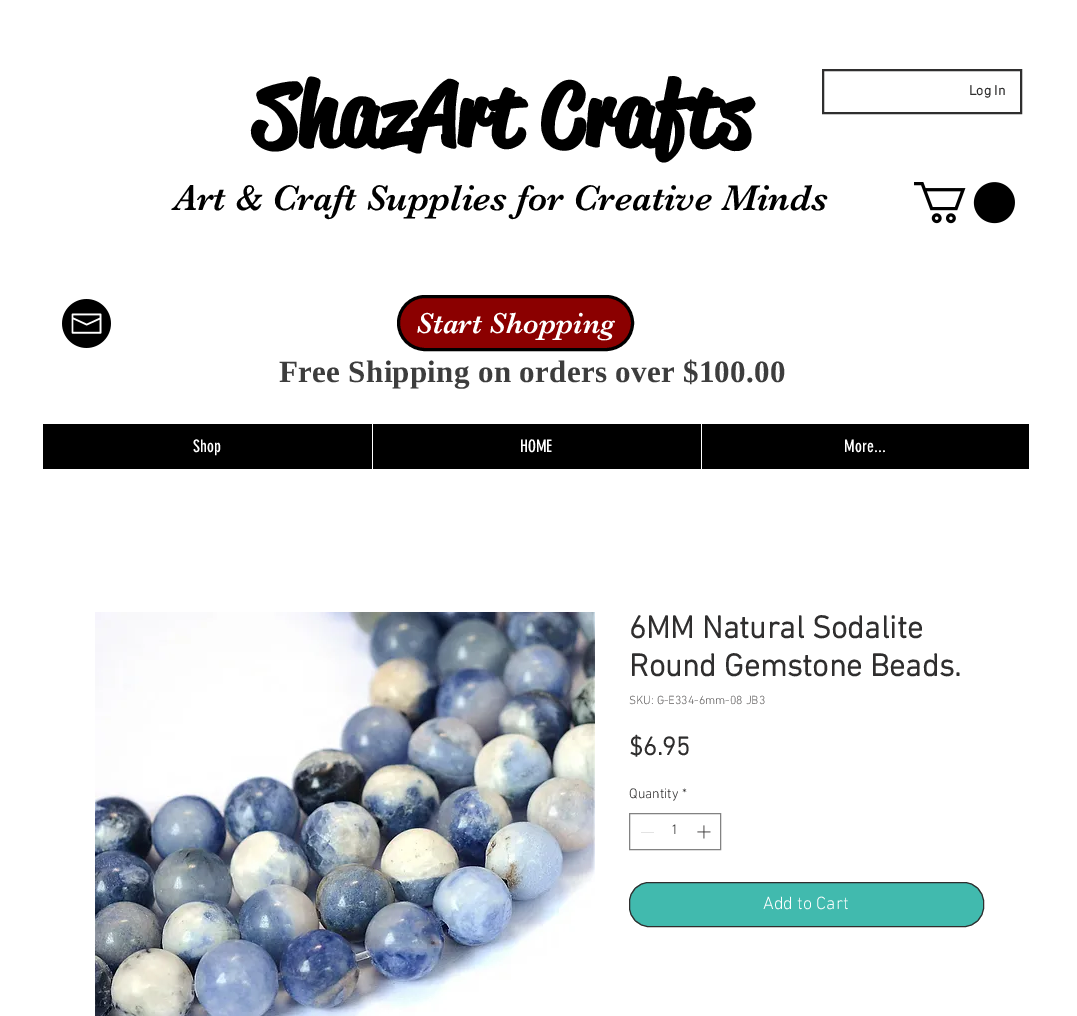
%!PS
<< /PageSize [1077 1016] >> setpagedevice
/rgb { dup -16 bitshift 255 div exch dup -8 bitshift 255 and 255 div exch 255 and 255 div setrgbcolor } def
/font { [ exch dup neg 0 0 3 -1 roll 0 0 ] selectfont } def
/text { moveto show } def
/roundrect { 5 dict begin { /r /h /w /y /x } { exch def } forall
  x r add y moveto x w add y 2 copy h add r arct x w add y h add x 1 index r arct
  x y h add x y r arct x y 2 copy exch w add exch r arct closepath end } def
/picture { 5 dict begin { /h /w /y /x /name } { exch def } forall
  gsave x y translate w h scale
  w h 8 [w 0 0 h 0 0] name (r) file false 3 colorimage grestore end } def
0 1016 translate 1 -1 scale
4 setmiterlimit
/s1 { /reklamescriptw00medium-Bold 89 font 16#000000 rgb } def
/s2 { /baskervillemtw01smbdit-Regular 37 font 16#000000 rgb } def
/s3 { /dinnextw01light-Bold 14 font 16#2F2E2E rgb } def
/s4 { /baskervillemtw01smbdit-Regular 30 font 16#FFFFFF rgb } def
/s5 { /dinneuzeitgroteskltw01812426-Regular 17 font 16#FFFFFF rgb } def
/s6 { /dinnextw01light-Bold 32 font 16#2F2E2E rgb } def
/s7 { /dinnextw01light-Light 12 font 16#605E5E rgb } def
/s8 { /dinnextw01light-Bold 26 font 16#2F2E2E rgb } def
/s9 { /dinnextw01light-Light 14 font 16#2F2E2E rgb } def
/s10 { /dinnextw01light-Light 18 font 16#FFFFFF rgb } def
16#FFFFFF rgb
0 0 1077 1016 rectfill
s1
(ShazArt Crafts) 253 146 text
s2
(Art & Craft Supplies for Creative Minds) 174 210 text
16#2F2E2E rgb
2 setlinewidth
823 70 198 43 rectstroke
s3
(Log In) 969 95 text
(pic1.raw) 914 182 101 42 picture
(pic2.raw) 62 299 49 49 picture
16#8B0000 rgb
398.5 296.5 234 53 26.5 roundrect gsave fill grestore
16#000000 rgb
3 setlinewidth
stroke
s4
(Start Shopping) 416 333 text
/LiberationSerif-Bold 31 font
16#3D3D3D rgb
279 382 moveto 0.3 0 (Free Shipping on orders over $100.00) ashow
16#000000 rgb
43 424 986 45 rectfill
s5
(Shop) 193 452 text
372 424 1 45 rectfill
(HOME) 520 452 text
701 424 1 45 rectfill
(More...) 844 452 text
(pic3.raw) 95 612 500 404 picture
s6
(6MM Natural Sodalite) 629 638 text
(Round Gemstone Beads.) 629 676 text
s7
(SKU: G-E334-6mm-08 JB3) 629 704 text
s8
($6.95) 629 755 text
s9
(Quantity) 629 798 text
(*) 682 798 text
16#828282 rgb
1 setlinewidth
629.5 813.5 91 36 rectstroke
16#E3E3E3 rgb
641 832 13 1 rectfill
s9
(1) 671 834 text
(pic4.raw) 697 825 14 14 picture
16#41BAAE rgb
629.5 882.5 354 44 19.5 roundrect gsave fill grestore
16#2F2E2E rgb
stroke
s10
(Add to Cart) 763 909 text
showpage
